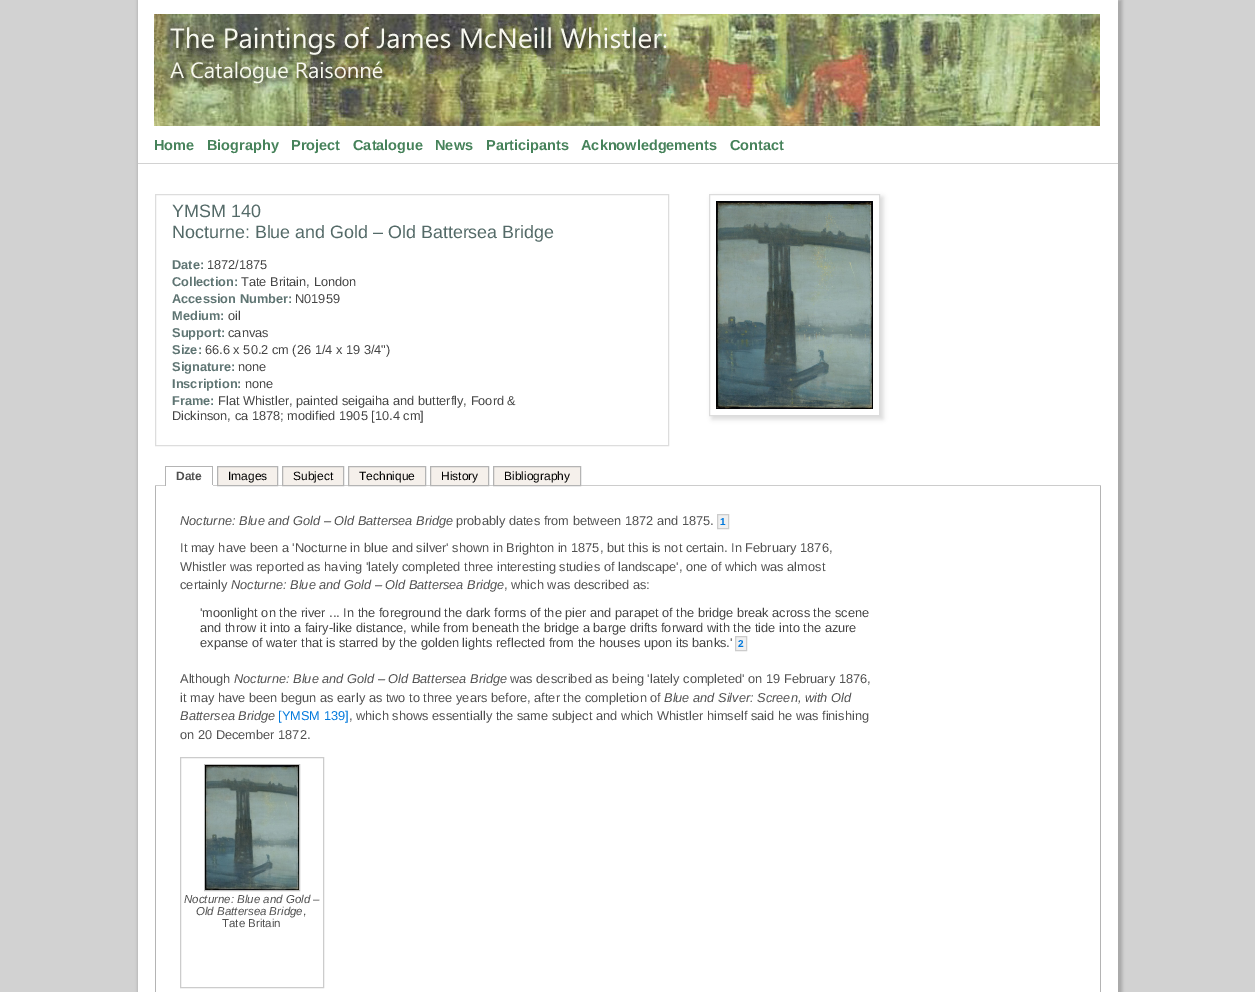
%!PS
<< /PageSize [1255 992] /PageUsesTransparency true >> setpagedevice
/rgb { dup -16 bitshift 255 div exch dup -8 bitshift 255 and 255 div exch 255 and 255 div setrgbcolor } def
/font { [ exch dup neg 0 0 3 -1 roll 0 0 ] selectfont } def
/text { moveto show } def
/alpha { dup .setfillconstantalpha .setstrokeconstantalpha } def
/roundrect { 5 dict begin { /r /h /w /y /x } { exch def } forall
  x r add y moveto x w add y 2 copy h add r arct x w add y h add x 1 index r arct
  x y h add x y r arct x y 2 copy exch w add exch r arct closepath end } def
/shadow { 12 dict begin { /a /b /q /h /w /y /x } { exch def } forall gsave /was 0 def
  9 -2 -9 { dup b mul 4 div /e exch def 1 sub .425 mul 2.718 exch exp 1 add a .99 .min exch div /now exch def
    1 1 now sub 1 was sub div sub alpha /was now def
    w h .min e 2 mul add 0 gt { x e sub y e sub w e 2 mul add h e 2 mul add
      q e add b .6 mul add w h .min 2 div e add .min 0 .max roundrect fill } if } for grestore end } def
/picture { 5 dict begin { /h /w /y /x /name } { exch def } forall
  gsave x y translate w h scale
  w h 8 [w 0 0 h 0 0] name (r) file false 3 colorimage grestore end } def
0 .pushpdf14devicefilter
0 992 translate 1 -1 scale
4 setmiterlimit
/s1 { /LiberationSans-Bold 14.5 font 16#46825A rgb } def
/s2 { /LiberationSans-Regular 17.9 font 16#546A68 rgb } def
/s3 { /LiberationSans-Bold 12.8 font 16#5E7472 rgb } def
/s4 { /LiberationSans-Regular 12.8 font 16#444444 rgb } def
/s5 { /LiberationSans-Bold 12 font 16#505050 rgb } def
/s6 { /LiberationSans-Regular 12 font 16#000000 rgb } def
/s7 { /LiberationSans-Italic 12.8 font 16#505050 rgb } def
/s8 { /LiberationSans-Regular 12.8 font 16#505050 rgb } def
/s9 { /LiberationSans-Bold 10 font 16#0078DC rgb } def
/s10 { /LiberationSans-Regular 12.8 font 16#0078DC rgb } def
/s11 { /LiberationSans-Italic 11.5 font 16#505050 rgb } def
/s12 { /LiberationSans-Regular 11.5 font 16#505050 rgb } def
16#D2D2D2 rgb
0 0 1255 992 rectfill
16#000000 rgb
138 0 984 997 0 1.5 0.2 shadow
16#FFFFFF rgb
138 0 980 992 rectfill
(pic1.raw) 154 14 946 112 picture
s1
(Home) 154 150 text
(Biography) 207 150 text
(Project) 291 150 text
(Catalogue) 353 150 text
(News) 435 150 text
(Participants) 486 150 text
(Acknowledgements) 581 150 text
(Contact) 730 150 text
16#D2D2D2 rgb
138 163 980 1 rectfill
16#DDDDDD rgb
155.5 194.5 513 251 rectstroke
s2
(YMSM 140) 172 217 text
(Nocturne: Blue and Gold – Old Battersea Bridge) 172 238 text
s3
(Date:) 172 269 text
s4
(1872/1875) 207 269 text
s3
(Collection:) 172 286 text
s4
(Tate Britain, London) 241 286 text
s3
(Accession Number:) 172 303 text
s4
(N01959) 295 303 text
s3
(Medium:) 172 320 text
s4
(oil) 228 320 text
s3
(Support:) 172 337 text
s4
(canvas) 228 337 text
s3
(Size:) 172 354 text
s4
(66.6 x 50.2 cm \(26 1/4 x 19 3/4"\)) 205 354 text
s3
(Signature:) 172 371 text
s4
(none) 238 371 text
s3
(Inscription:) 172 388 text
s4
(none) 245 388 text
s3
(Frame:) 172 405 text
s4
(Flat Whistler, painted seigaiha and butterfly, Foord &) 218 405 text
(Dickinson, ca 1878; modified 1905 [10.4 cm]) 172 420 text
gsave
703 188 moveto 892 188 lineto 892 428 lineto 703 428 lineto closepath 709 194 moveto 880 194 lineto 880 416 lineto 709 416 lineto closepath eoclip newpath
16#000000 rgb
712 197 171 222 0 2.5 0.15 shadow
grestore
16#DCDCDC rgb
709.5 194.5 170 221 rectstroke
(pic2.raw) 716 201 157 208 picture
16#CCCCCC rgb
155 485 946 1 rectfill
16#B4B4B4 rgb
165 466 48 1 rectfill
212 466 1 20 rectfill
16#FFFFFF rgb
165 485 48 1 rectfill
16#B4B4B4 rgb
165 466 1 20 rectfill
s5
(Date) 176 480 text
16#F5F0EB rgb
217.5 466.5 moveto 277.5 466.5 lineto 277.5 485.5 lineto 217.5 485.5 lineto closepath gsave fill grestore
16#B4B4B4 rgb
stroke
s6
(Images) 228 480 text
16#F5F0EB rgb
282.5 466.5 moveto 343.5 466.5 lineto 343.5 485.5 lineto 282.5 485.5 lineto closepath gsave fill grestore
16#B4B4B4 rgb
stroke
s6
(Subject) 293 480 text
16#F5F0EB rgb
348.5 466.5 moveto 425.5 466.5 lineto 425.5 485.5 lineto 348.5 485.5 lineto closepath gsave fill grestore
16#B4B4B4 rgb
stroke
s6
(Technique) 359 480 text
16#F5F0EB rgb
430.5 466.5 moveto 488.5 466.5 lineto 488.5 485.5 lineto 430.5 485.5 lineto closepath gsave fill grestore
16#B4B4B4 rgb
stroke
s6
(History) 441 480 text
16#F5F0EB rgb
493.5 466.5 moveto 580.5 466.5 lineto 580.5 485.5 lineto 493.5 485.5 lineto closepath gsave fill grestore
16#B4B4B4 rgb
stroke
s6
(Bibliography) 504 480 text
16#B4B4B4 rgb
1100 486 1 506 rectfill
155 486 1 506 rectfill
s7
(Nocturne: Blue and Gold – Old Battersea Bridge) 180 525 text
s8
(probably dates from between 1872 and 1875.) 456 525 text
16#F0F0F0 rgb
717.5 514.5 moveto 728.5 514.5 lineto 728.5 528.5 lineto 717.5 528.5 lineto closepath gsave fill grestore
16#CCCCCC rgb
stroke
s9
(1) 720 525 text
s8
(It may have been a 'Nocturne in blue and silver' shown in Brighton in 1875, but this is not certain. In February 1876,) 180 552 text
(Whistler was reported as having 'lately completed three interesting studies of landscape', one of which was almost) 180 571 text
(certainly) 180 589 text
s7
(Nocturne: Blue and Gold – Old Battersea Bridge) 231 589 text
s8
(, which was described as:) 504 589 text
s4
('moonlight on the river ... In the foreground the dark forms of the pier and parapet of the bridge break across the scene) 200 617 text
(and throw it into a fairy-like distance, while from beneath the bridge a barge drifts forward with the tide into the azure) 200 632 text
(expanse of water that is starred by the golden lights reflected from the houses upon its banks.') 200 647 text
16#F0F0F0 rgb
735.5 636.5 moveto 746.5 636.5 lineto 746.5 650.5 lineto 735.5 650.5 lineto closepath gsave fill grestore
16#CCCCCC rgb
stroke
s9
(2) 738 647 text
s8
(Although) 180 683 text
s7
(Nocturne: Blue and Gold – Old Battersea Bridge) 234 683 text
s8
(was described as being 'lately completed' on 19 February 1876,) 510 683 text
(it may have been begun as early as two to three years before, after the completion of) 180 702 text
s7
(Blue and Silver: Screen, with Old) 664 702 text
(Battersea Bridge) 180 720 text
s10
([YMSM 139]) 278 720 text
s8
(, which shows essentially the same subject and which Whistler himself said he was finishing) 349 720 text
(on 20 December 1872.) 180 739 text
16#CCCCCC rgb
180.5 757.5 143 230 rectstroke
16#BEBEBE rgb
204.5 764.5 95 126 rectstroke
(pic3.raw) 205 765 94 125 picture
s11
(Nocturne: Blue and Gold –) 184 903 text
(Old Battersea Bridge) 196 915 text
s12
(,) 303 915 text
(Tate Britain) 222 927 text
.poppdf14devicefilter showpage
